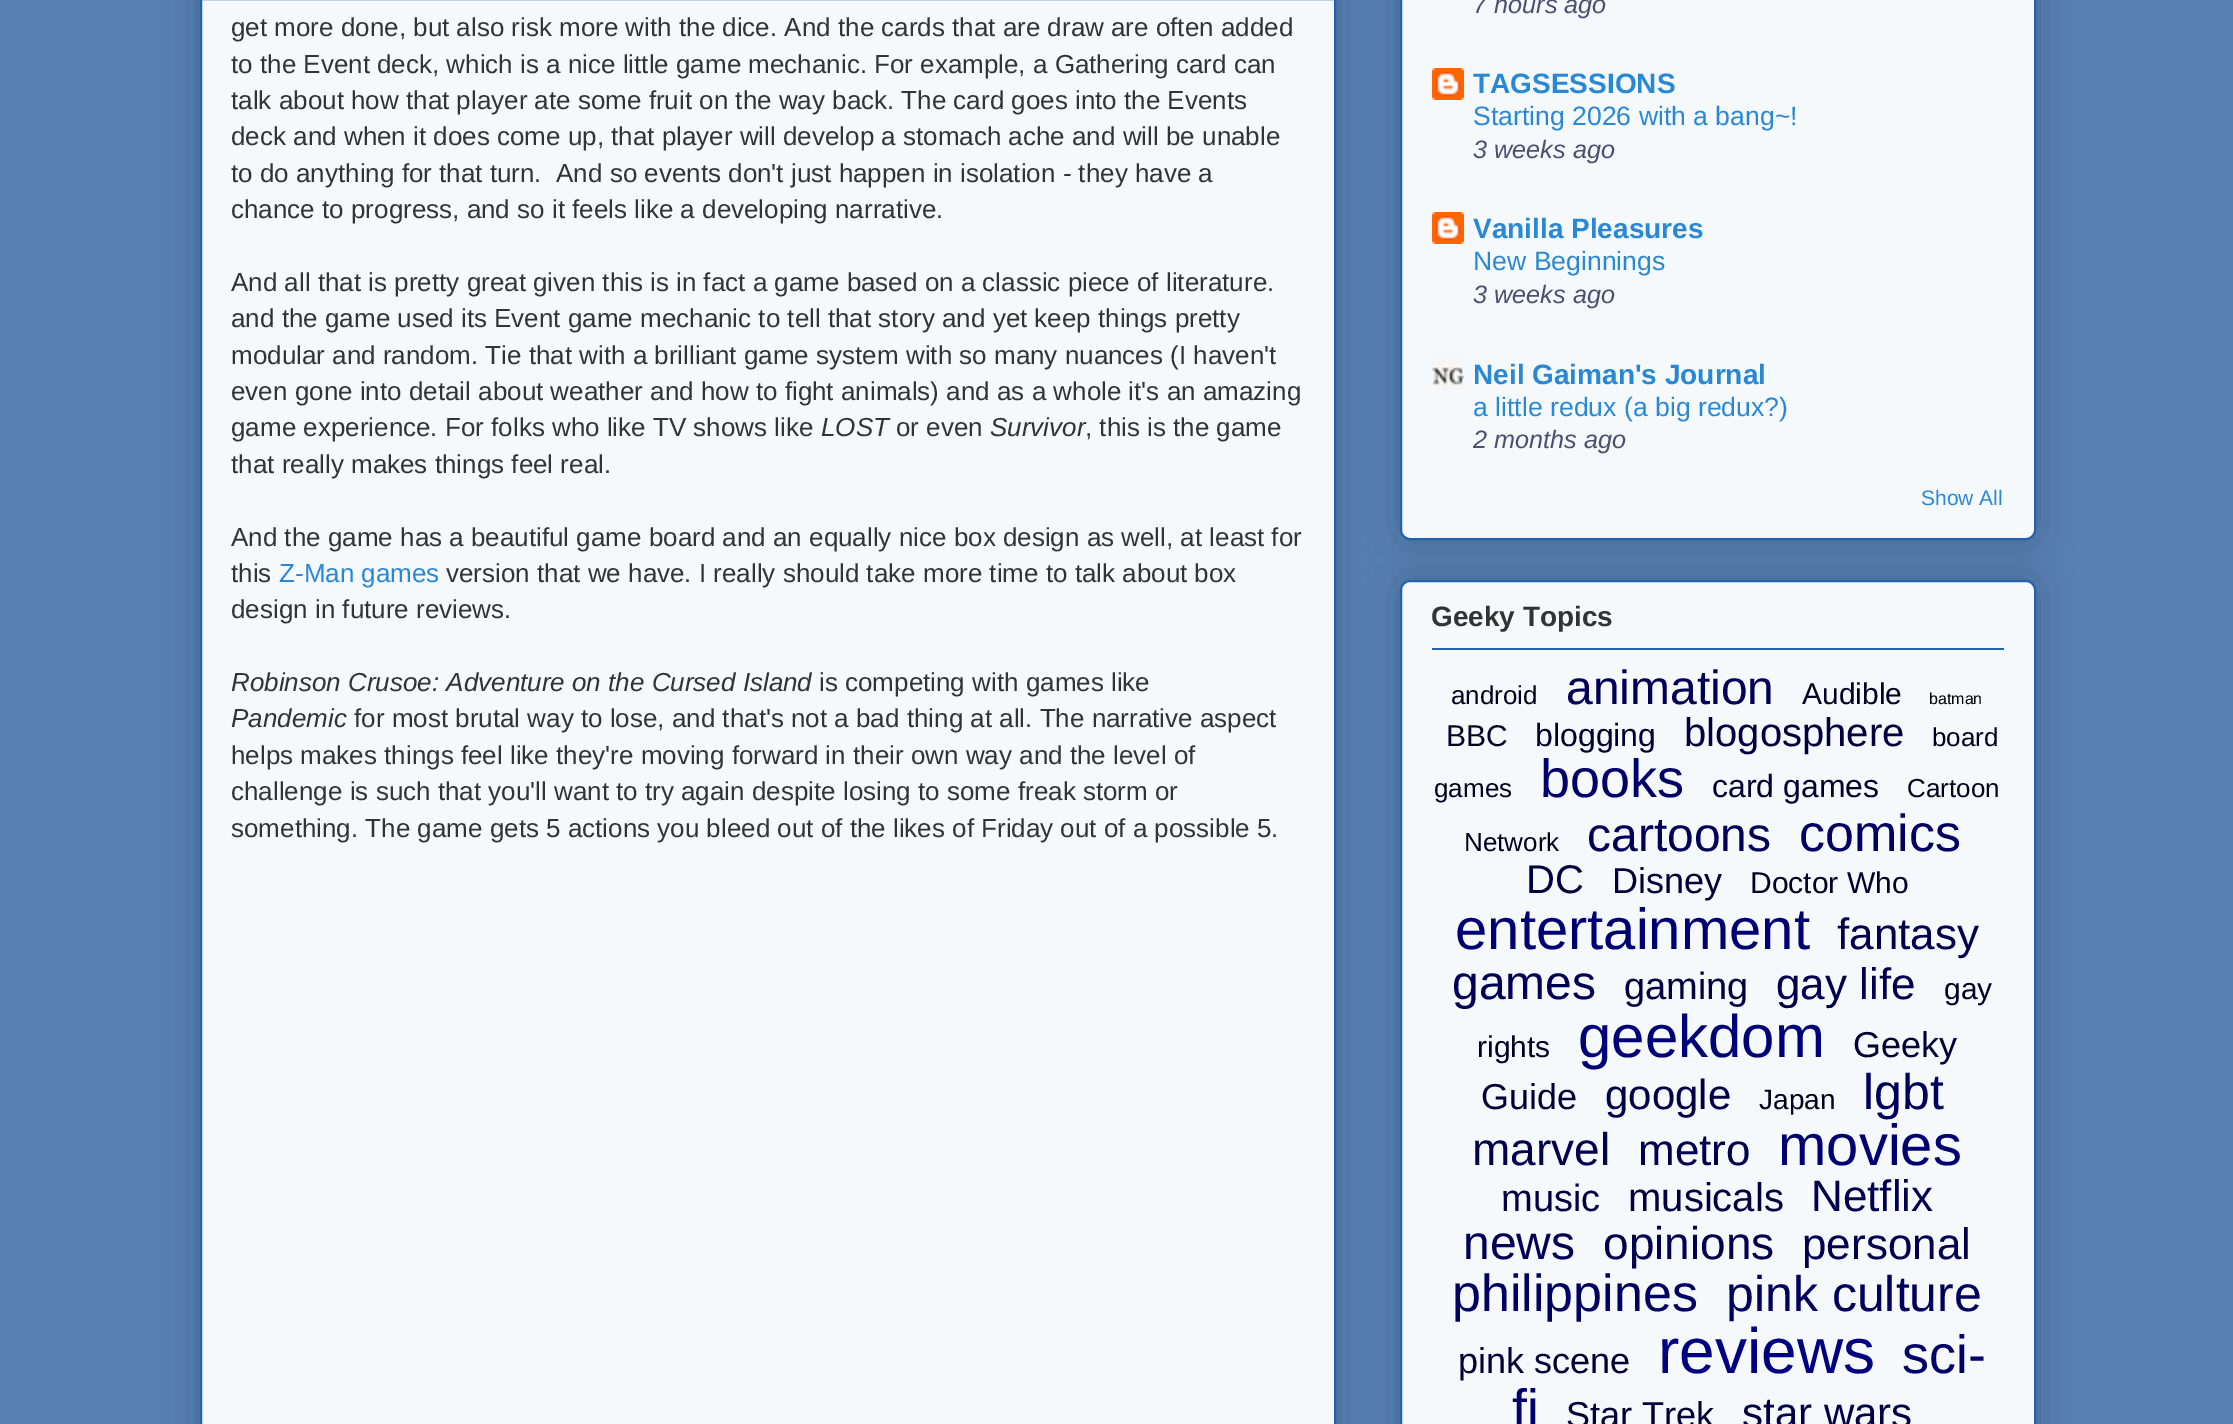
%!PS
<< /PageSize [2233 1424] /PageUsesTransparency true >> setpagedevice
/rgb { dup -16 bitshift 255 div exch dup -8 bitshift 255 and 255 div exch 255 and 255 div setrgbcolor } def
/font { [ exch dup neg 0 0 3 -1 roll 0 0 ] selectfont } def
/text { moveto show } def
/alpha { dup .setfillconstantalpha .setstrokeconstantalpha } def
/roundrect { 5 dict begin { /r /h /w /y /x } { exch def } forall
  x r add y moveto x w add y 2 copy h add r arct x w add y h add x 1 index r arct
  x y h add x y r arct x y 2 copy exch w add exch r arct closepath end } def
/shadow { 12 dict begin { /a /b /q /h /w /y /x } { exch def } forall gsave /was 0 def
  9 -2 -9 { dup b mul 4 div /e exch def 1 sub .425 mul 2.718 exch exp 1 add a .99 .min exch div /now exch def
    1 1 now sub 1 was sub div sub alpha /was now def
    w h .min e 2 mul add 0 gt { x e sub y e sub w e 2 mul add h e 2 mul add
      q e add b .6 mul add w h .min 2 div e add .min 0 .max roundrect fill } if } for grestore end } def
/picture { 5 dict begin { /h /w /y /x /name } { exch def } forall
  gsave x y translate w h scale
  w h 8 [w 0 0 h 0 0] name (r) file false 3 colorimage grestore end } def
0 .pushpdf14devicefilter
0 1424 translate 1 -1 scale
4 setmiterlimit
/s1 { /LiberationSans-Regular 26 font 16#333333 rgb } def
/s2 { /LiberationSans-Italic 26 font 16#333333 rgb } def
/s3 { /LiberationSans-Regular 26 font 16#2988D5 rgb } def
/s4 { /LiberationSans-Italic 25.25 font 16#4B5070 rgb } def
/s5 { /LiberationSans-Bold 28 font 16#2988D5 rgb } def
/s6 { /LiberationSans-Regular 26.6 font 16#2988D5 rgb } def
/s7 { /LiberationSans-Regular 21 font 16#2988D5 rgb } def
/s8 { /LiberationSans-Bold 28 font 16#333333 rgb } def
/s9 { /LiberationSans-Regular 26 font 16#00001D rgb } def
/s10 { /LiberationSans-Regular 48 font 16#000056 rgb } def
/s11 { /LiberationSans-Regular 30 font 16#000027 rgb } def
/s12 { /LiberationSans-Regular 16 font 16#000000 rgb } def
/s13 { /LiberationSans-Regular 32 font 16#00002E rgb } def
/s14 { /LiberationSans-Regular 40 font 16#000040 rgb } def
/s15 { /LiberationSans-Regular 54 font 16#00006A rgb } def
/s16 { /LiberationSans-Regular 52 font 16#000063 rgb } def
/s17 { /LiberationSans-Regular 36 font 16#000036 rgb } def
/s18 { /LiberationSans-Regular 58 font 16#000073 rgb } def
/s19 { /LiberationSans-Regular 44 font 16#00004F rgb } def
/s20 { /LiberationSans-Regular 38 font 16#000040 rgb } def
/s21 { /LiberationSans-Regular 60 font 16#000079 rgb } def
/s22 { /LiberationSans-Regular 42 font 16#000049 rgb } def
/s23 { /LiberationSans-Regular 28 font 16#00001D rgb } def
/s24 { /LiberationSans-Regular 50 font 16#00005D rgb } def
/s25 { /LiberationSans-Regular 46 font 16#00004F rgb } def
/s26 { /LiberationSans-Regular 64 font 16#000080 rgb } def
16#5880B1 rgb
0 0 2233 1424 rectfill
16#000000 rgb
200 -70 1136 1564 10 20 0.2 shadow
16#F5F9FC rgb
201 -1 moveto 1335 -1 lineto 1335 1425 lineto 201 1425 lineto closepath gsave fill grestore
16#2263B1 rgb
2 setlinewidth
stroke
s1
(get more done, but also risk more with the dice. And the cards that are draw are often added) 231 36 text
(to the Event deck, which is a nice little game mechanic. For example, a Gathering card can) 231 73 text
(talk about how that player ate some fruit on the way back. The card goes into the Events) 231 109 text
(deck and when it does come up, that player will develop a stomach ache and will be unable) 231 145 text
(to do anything for that turn.  And so events don't just happen in isolation - they have a) 231 182 text
(chance to progress, and so it feels like a developing narrative.) 231 218 text
(And all that is pretty great given this is in fact a game based on a classic piece of literature.) 231 291 text
(and the game used its Event game mechanic to tell that story and yet keep things pretty) 231 327 text
(modular and random. Tie that with a brilliant game system with so many nuances \(I haven't) 231 364 text
(even gone into detail about weather and how to fight animals\) and as a whole it's an amazing) 231 400 text
(game experience. For folks who like TV shows like) 231 436 text
s2
(LOST) 821 436 text
s1
(or even) 896 436 text
s2
(Survivor) 990 436 text
s1
(, this is the game) 1085 436 text
(that really makes things feel real.) 231 473 text
(And the game has a beautiful game board and an equally nice box design as well, at least for) 231 546 text
(this) 231 582 text
s3
(Z-Man games) 279 582 text
s1
(version that we have. I really should take more time to talk about box) 446 582 text
(design in future reviews.) 231 618 text
s2
(Robinson Crusoe: Adventure on the Cursed Island) 231 691 text
s1
(is competing with games like) 819 691 text
s2
(Pandemic) 231 727 text
s1
(for most brutal way to lose, and that's not a bad thing at all. The narrative aspect) 354 727 text
(helps makes things feel like they're moving forward in their own way and the level of) 231 764 text
(challenge is such that you'll want to try again despite losing to some freak storm or) 231 800 text
(something. The game gets 5 actions you bleed out of the likes of Friday out of a possible 5.) 231 837 text
16#000000 rgb
1400 -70 636 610 10 20 0.2 shadow
16#F5F9FC rgb
1401 -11 634 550 9 roundrect gsave fill grestore
16#2263B1 rgb
stroke
s4
(7 hours ago) 1473 13 text
(pic1.raw) 1432 68 32 32 picture
s5
(TAGSESSIONS) 1473 93 text
s6
(Starting 2026 with a bang~!) 1473 125 text
s4
(3 weeks ago) 1473 158 text
(pic1.raw) 1432 212 32 32 picture
s5
(Vanilla Pleasures) 1473 238 text
s6
(New Beginnings) 1473 270 text
s4
(3 weeks ago) 1473 303 text
(pic2.raw) 1432 358 32 32 picture
s5
(Neil Gaiman's Journal) 1473 384 text
s6
(a little redux \(a big redux?\)) 1473 416 text
s4
(2 months ago) 1473 448 text
s7
(Show All) 1921 505 text
16#000000 rgb
1400 580 636 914 10 20 0.2 shadow
16#F5F9FC rgb
1401 581 634 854 9 roundrect gsave fill grestore
16#2263B1 rgb
stroke
s8
(Geeky Topics) 1431 626 text
16#2263B1 rgb
1432 648 572 2 rectfill
s9
(android) 1451 704 text
s10
(animation) 1566 704 text
s11
(Audible) 1802 704 text
s12
(batman) 1929 704 text
s11
(BBC) 1446 746 text
s13
(blogging) 1535 746 text
s14
(blogosphere) 1684 746 text
s9
(board) 1932 746 text
(games) 1434 797 text
s15
(books) 1540 797 text
s13
(card games) 1712 797 text
s9
(Cartoon) 1907 797 text
(Network) 1464 851 text
s10
(cartoons) 1587 851 text
s16
(comics) 1799 851 text
s14
(DC) 1526 893 text
s17
(Disney) 1612 893 text
s11
(Doctor Who) 1750 893 text
s18
(entertainment) 1455 949 text
s19
(fantasy) 1837 949 text
s10
(games) 1452 999 text
s20
(gaming) 1624 999 text
s19
(gay life) 1776 999 text
s11
(gay) 1944 999 text
(rights) 1477 1057 text
s21
(geekdom) 1578 1057 text
s17
(Geeky) 1853 1057 text
(Guide) 1481 1109 text
s22
(google) 1605 1109 text
s23
(Japan) 1759 1109 text
s24
(lgbt) 1863 1109 text
s25
(marvel) 1472 1165 text
s19
(metro) 1638 1165 text
s18
(movies) 1778 1165 text
s20
(music) 1501 1211 text
s14
(musicals) 1628 1211 text
s19
(Netflix) 1811 1211 text
s10
(news) 1463 1259 text
s25
(opinions) 1603 1259 text
s19
(personal) 1802 1259 text
s16
(philippines) 1452 1311 text
s24
(pink culture) 1726 1311 text
s17
(pink scene) 1458 1373 text
s26
(reviews) 1658 1373 text
s15
(sci-) 1902 1373 text
(fi) 1512 1427 text
s17
(Star Trek) 1566 1427 text
s22
(star wars) 1742 1427 text
.poppdf14devicefilter showpage
